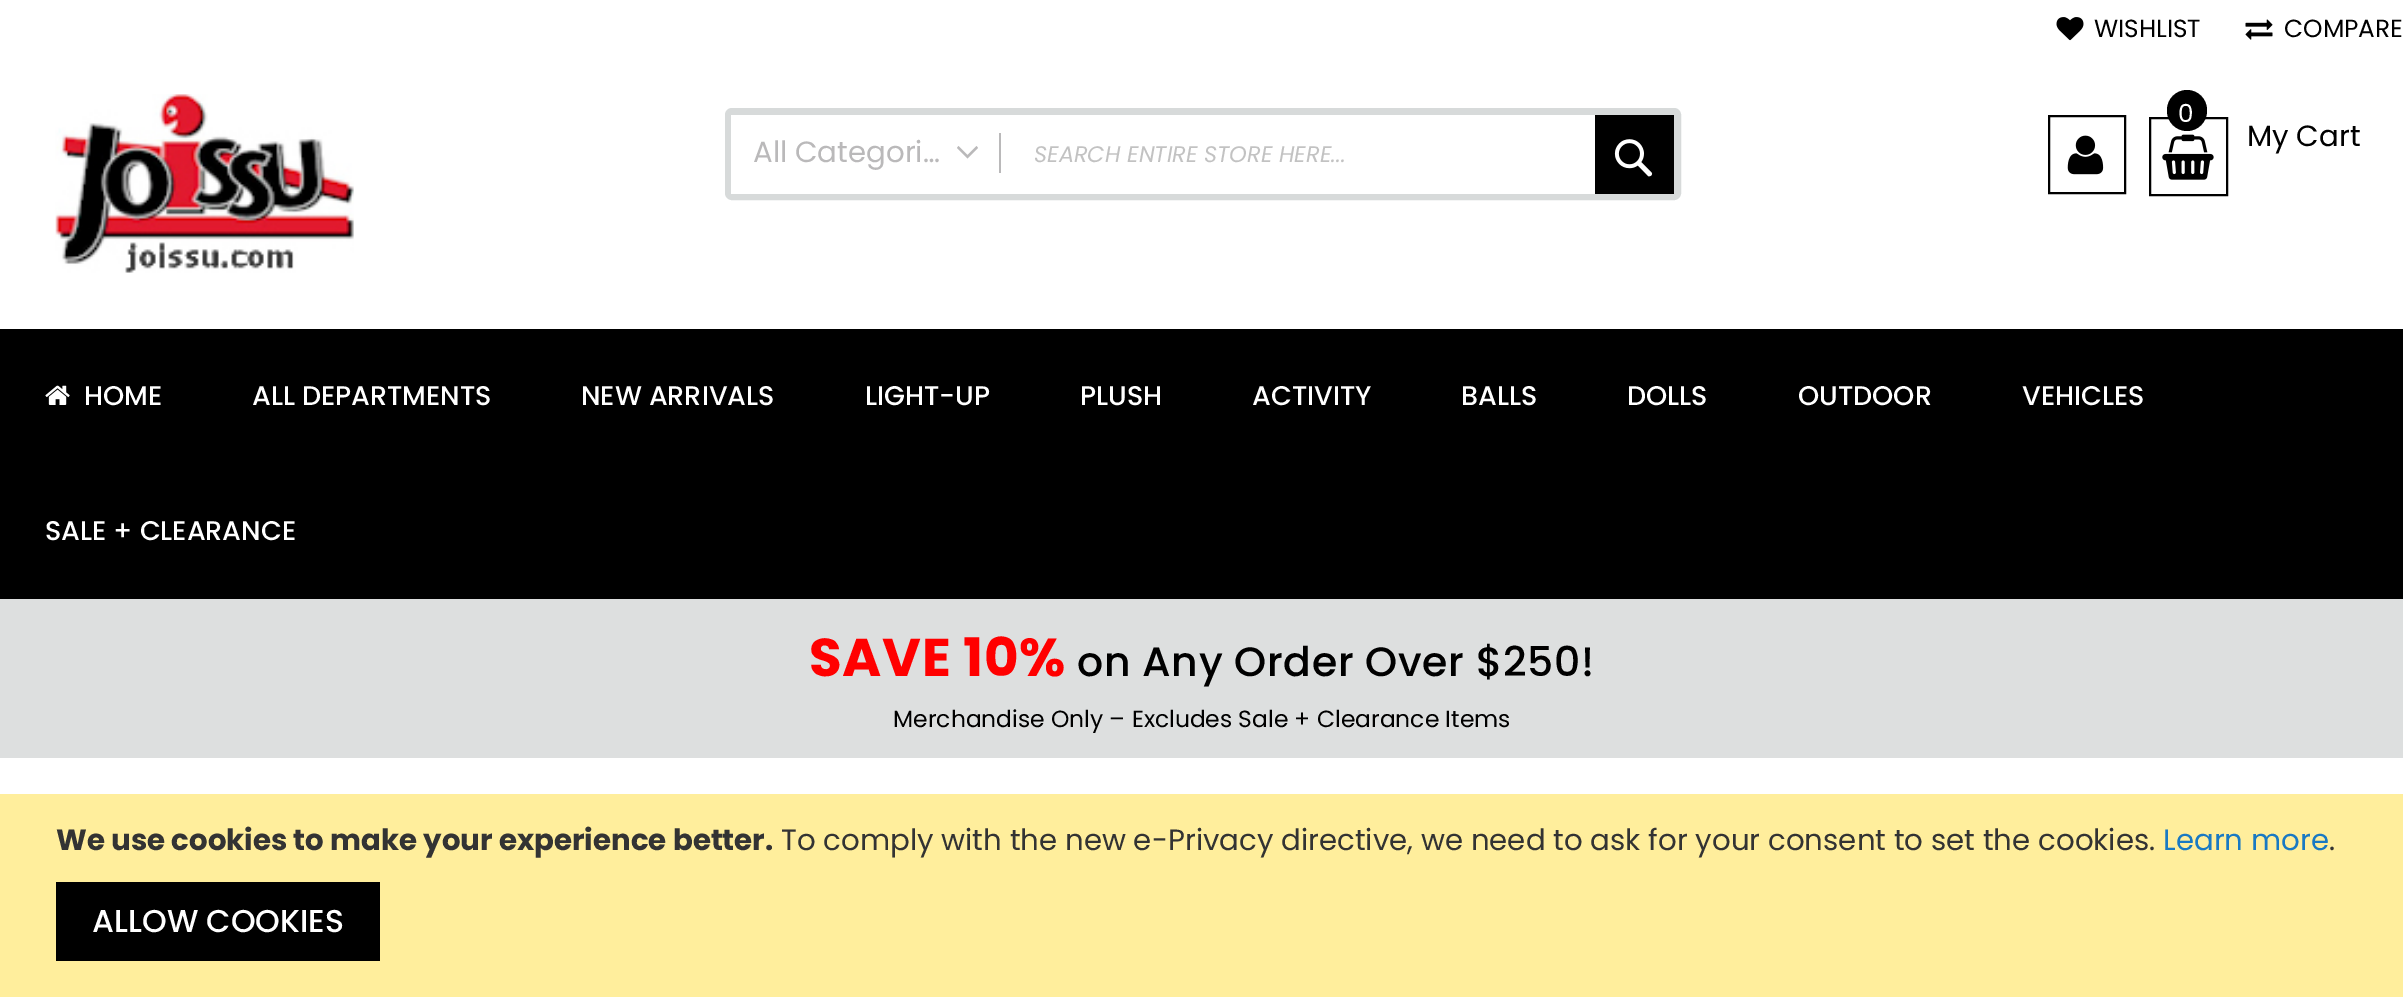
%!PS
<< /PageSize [2403 997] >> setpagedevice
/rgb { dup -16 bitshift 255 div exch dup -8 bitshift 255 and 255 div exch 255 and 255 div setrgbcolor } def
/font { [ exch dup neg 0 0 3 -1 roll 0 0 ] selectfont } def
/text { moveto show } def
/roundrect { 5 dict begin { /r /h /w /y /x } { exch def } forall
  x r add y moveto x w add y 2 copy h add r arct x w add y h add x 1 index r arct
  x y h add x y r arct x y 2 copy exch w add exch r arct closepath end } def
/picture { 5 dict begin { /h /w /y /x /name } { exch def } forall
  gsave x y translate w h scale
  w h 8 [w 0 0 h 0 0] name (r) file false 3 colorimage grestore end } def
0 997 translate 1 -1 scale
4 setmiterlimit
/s1 { /Poppins-Regular 24.75 font 16#000000 rgb } def
/s2 { /Poppins-Regular 29.25 font 16#BAB9BA rgb } def
/s3 { /Poppins-Italic 22.5 font 16#C2C2C2 rgb } def
/s4 { /Poppins-Regular 24.75 font 16#FFFFFF rgb } def
/s5 { /Poppins-Regular 29.25 font 16#000000 rgb } def
/s6 { /Poppins-Medium 27 font 16#FFFFFF rgb } def
/s7 { /Poppins-Regular 23.4 font 16#000000 rgb } def
/s8 { /Poppins-Bold 29.25 font 16#333333 rgb } def
/s9 { /Poppins-Regular 29.25 font 16#333333 rgb } def
/s10 { /Poppins-Regular 29.25 font 16#1979C3 rgb } def
/s11 { /Poppins-Medium 31.5 font 16#FFFFFF rgb } def
16#FFFFFF rgb
0 0 2403 997 rectfill
(pic1.raw) 2056 17 28 24 picture
s1
(WISHLIST) 2094 37 text
(pic2.raw) 2245 19 28 21 picture
(COMPARE) 2284 37 text
(pic3.raw) 55 94 299 179 picture
16#D7DADA rgb
7 setlinewidth
728.5 111.5 949 85 3.5 roundrect stroke
16#FFFFFF rgb
731 115 864 79 rectfill
s2
(All Categori…) 753 162 text
967.5 155 moveto 958.5 146 lineto 957 148 lineto 967.5 158.5 lineto 978 148 lineto 976.5 146 lineto closepath fill
999 133 2 40 rectfill
s3
(SEARCH ENTIRE STORE HERE...) 1034 162 text
16#000000 rgb
1595 115 79 79 rectfill
(pic4.raw) 1614 139 39 38 picture
2 setlinewidth
2049 116 76 77 rectstroke
(pic5.raw) 2067 135 37 40 picture
2150 118 77 77 rectstroke
2167 90 40 41 20 roundrect fill
s4
(0) 2178 122 text
(pic6.raw) 2162 134 52 46 picture
s5
(My Cart) 2247 146 text
0 329 2403 270 rectfill
(pic7.raw) 45 385 25 20 picture
s6
(HOME) 84 405 text
(ALL DEPARTMENTS) 252 405 text
(NEW ARRIVALS) 581 405 text
(LIGHT-UP) 865 405 text
(PLUSH) 1080 405 text
(ACTIVITY) 1252 405 text
(BALLS) 1461 405 text
(DOLLS) 1627 405 text
(OUTDOOR) 1798 405 text
(VEHICLES) 2022 405 text
(SALE + CLEARANCE) 45 540 text
16#DDDFDF rgb
0 599 2403 159 rectfill
/Poppins-Bold 53.25 font
16#FF0000 rgb
809 676 moveto 0.6 0 (SAVE 10%) ashow
/Poppins-Medium 41 font
16#000000 rgb
1077 676 moveto 0.6 0 (on Any Order Over $250!) ashow
s7
(Merchandise Only – Excludes Sale + Clearance Items) 893 727 text
16#FFEE9C rgb
0 794 2403 203 rectfill
s8
(We use cookies to make your experience better.) 56 850 text
s9
(To comply with the new e-Privacy directive, we need to ask for your consent to set the cookies.) 781 850 text
s10
(Learn more) 2163 850 text
s9
(.) 2329 850 text
16#000000 rgb
56 882 324 79 rectfill
s11
(ALLOW COOKIES) 92 932 text
showpage
